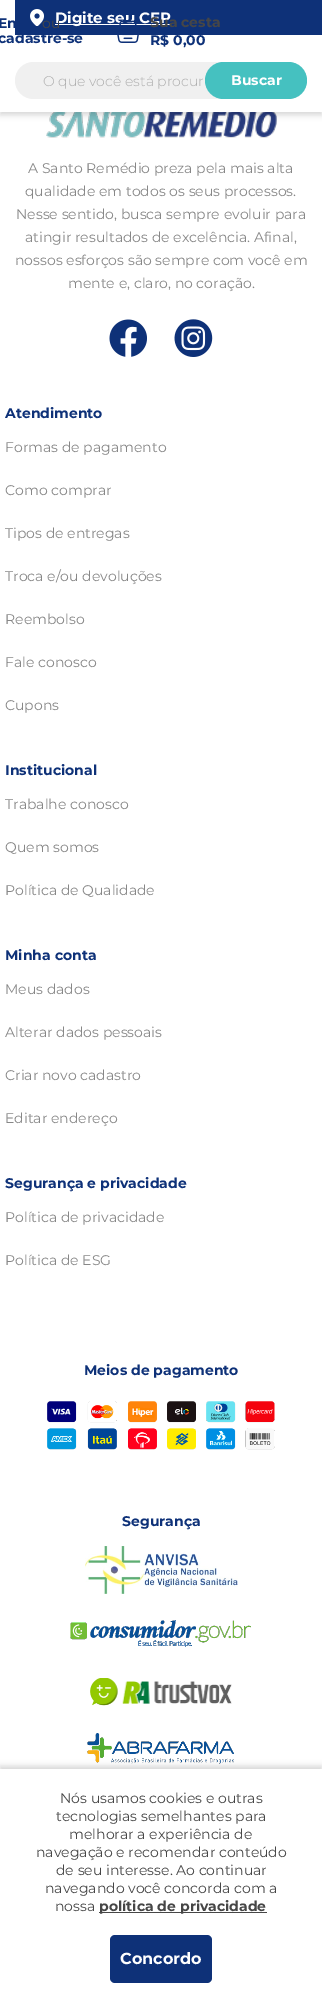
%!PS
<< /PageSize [322 2003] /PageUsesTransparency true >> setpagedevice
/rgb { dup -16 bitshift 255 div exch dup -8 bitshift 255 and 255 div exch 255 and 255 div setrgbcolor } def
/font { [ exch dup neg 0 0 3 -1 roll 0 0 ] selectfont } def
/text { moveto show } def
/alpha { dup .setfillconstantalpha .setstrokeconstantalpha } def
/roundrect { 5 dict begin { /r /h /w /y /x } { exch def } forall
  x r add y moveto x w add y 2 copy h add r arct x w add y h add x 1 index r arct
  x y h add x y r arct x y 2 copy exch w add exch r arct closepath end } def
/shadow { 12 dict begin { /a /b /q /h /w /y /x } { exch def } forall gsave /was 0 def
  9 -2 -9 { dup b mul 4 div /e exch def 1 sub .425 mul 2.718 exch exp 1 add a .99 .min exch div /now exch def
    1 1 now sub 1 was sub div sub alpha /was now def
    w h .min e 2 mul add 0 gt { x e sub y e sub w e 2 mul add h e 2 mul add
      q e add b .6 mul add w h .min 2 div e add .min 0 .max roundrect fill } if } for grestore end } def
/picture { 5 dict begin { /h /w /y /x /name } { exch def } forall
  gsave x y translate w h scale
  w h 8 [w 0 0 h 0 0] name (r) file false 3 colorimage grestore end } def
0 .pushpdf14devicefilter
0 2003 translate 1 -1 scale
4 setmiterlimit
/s1 { /Montserrat-Bold 15 font 16#FFFFFF rgb } def
/s2 { /Montserrat-Bold 14 font 16#0E3178 rgb } def
/s3 { /Montserrat-Regular 14 font 16#464646 rgb } def
/s4 { /Montserrat-Bold 14 font 16#464646 rgb } def
/s5 { /Montserrat-Light 14 font 16#ACACAC rgb } def
/s6 { /Montserrat-Bold 14 font 16#FFFFFF rgb } def
/s7 { /Montserrat-Regular 14 font 16#878787 rgb } def
/s8 { /Montserrat-Bold 16 font 16#FFFFFF rgb } def
16#FFFFFF rgb
0 0 322 2003 rectfill
(pic3.raw) 46 112 231 26 picture
16#000000 rgb
0 3 322 112 0 3 0.16 shadow
16#FFFFFF rgb
0 0 322 112 rectfill
16#0E3178 rgb
15 0 307 35 rectfill
(pic1.raw) 30 9 14 17 picture
16#FFFFFF rgb
55 24 116 1 rectfill
s1
(Digite seu CEP) 55 23 text
s2
(En) -2 28 text
s3
(ou) 42 28 text
s2
(cadastre-se) -2 43 text
(pic2.raw) 117 20 22 23 picture
s4
(Sua cesta) 150 27 text
s2
(R$ 0,00) 150 45 text
16#F0F0F0 rgb
15 62 292 37 18.5 roundrect fill
s5
(O que você está procur) 43 86 text
16#45C1C0 rgb
205 62 102 37 18.5 roundrect fill
s6
(Buscar) 231 85 text
s7
(A Santo Remédio preza pela mais alta) 28 173 text
(qualidade em todos os seus processos.) 25 196 text
(Nesse sentido, busca sempre evoluir para) 16 219 text
(atingir resultados de excelência. Afinal,) 25 242 text
(nossos esforços são sempre com você em) 15 265 text
(mente e, claro, no coração.) 68 288 text
(pic4.raw) 109 319 38 38 picture
(pic5.raw) 174 319 39 38 picture
s2
(Atendimento) 5 418 text
s7
(Formas de pagamento) 5 452 text
(Como comprar) 5 495 text
(Tipos de entregas) 5 538 text
(Troca e/ou devoluções) 5 581 text
(Reembolso) 5 624 text
(Fale conosco) 5 667 text
(Cupons) 5 710 text
s2
(Institucional) 5 775 text
s7
(Trabalhe conosco) 5 809 text
(Quem somos) 5 852 text
(Política de Qualidade) 5 895 text
s2
(Minha conta) 5 960 text
s7
(Meus dados) 5 994 text
(Alterar dados pessoais) 5 1037 text
(Criar novo cadastro) 5 1080 text
(Editar endereço) 5 1123 text
s2
(Segurança e privacidade) 5 1188 text
s7
(Política de privacidade) 5 1222 text
(Política de ESG) 5 1265 text
s2
(Meios de pagamento) 84 1375 text
(pic6.raw) 47 1401 228 49 picture
(Segurança) 122 1526 text
(pic7.raw) 85 1546 153 48 picture
(pic8.raw) 70 1620 181 27 picture
(pic9.raw) 90 1678 142 28 picture
(pic10.raw) 87 1733 147 31 picture
16#000000 rgb
0 1766 322 234 0 3 0.16 shadow
16#FFFFFF rgb
0 1769 322 234 rectfill
s3
(Nós usamos cookies e outras) 60 1803 text
(tecnologias semelhantes para) 56 1821 text
(melhorar a experiência de) 69 1839 text
(navegação e recomendar conteúdo) 36 1857 text
(de seu interesse. Ao continuar) 56 1875 text
(navegando você concorda com a) 45 1893 text
(nossa) 55 1911 text
99 1912 168 1 rectfill
s4
(política de privacidade) 99 1911 text
16#0E3178 rgb
110 1935 102 48 5 roundrect fill
s8
(Concordo) 120 1964 text
.poppdf14devicefilter showpage
